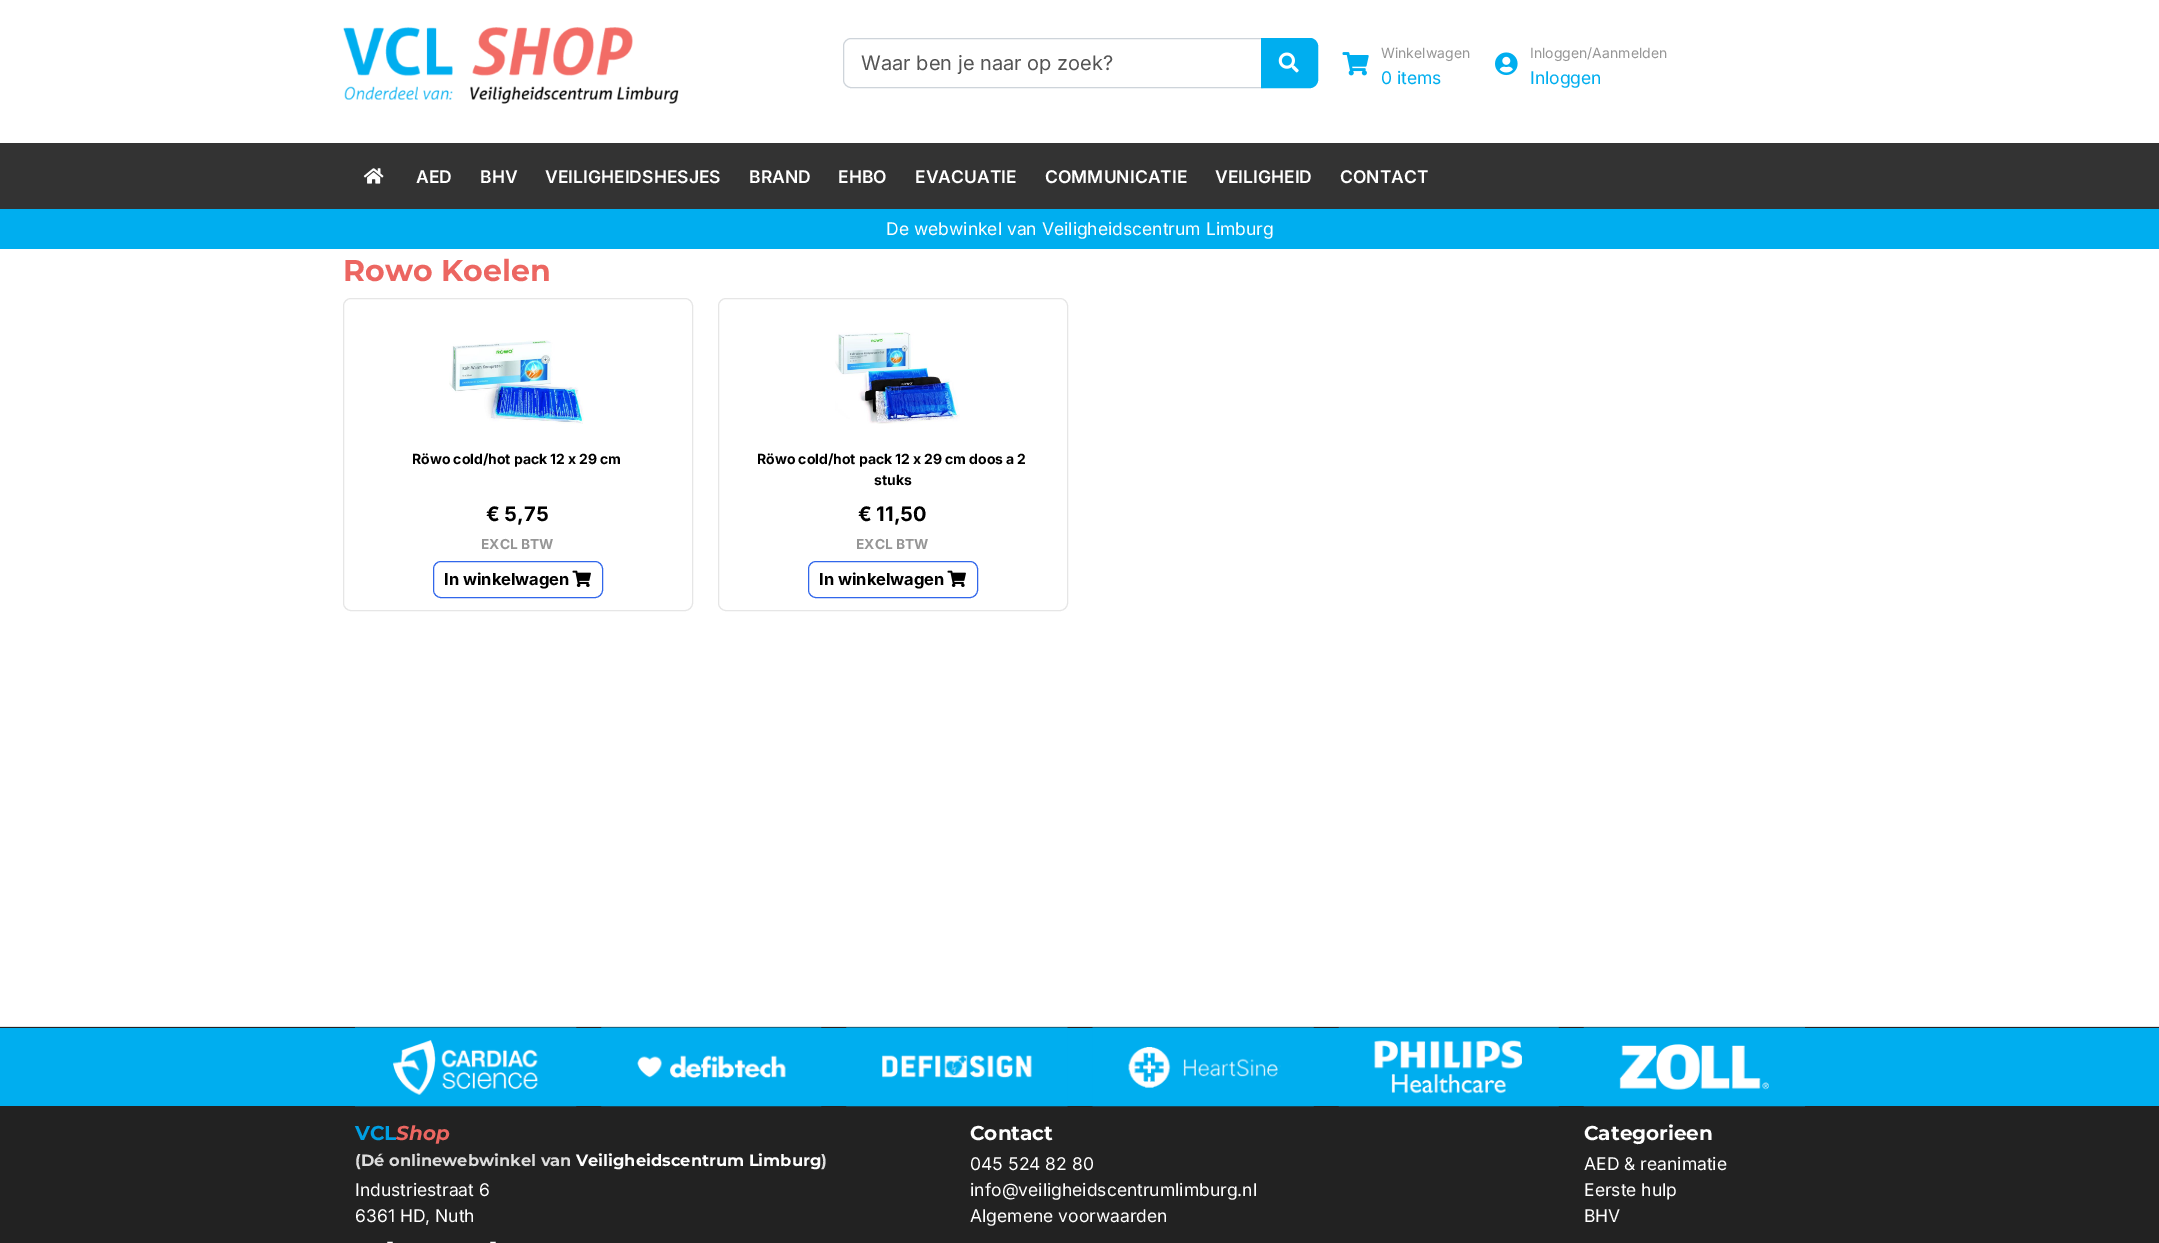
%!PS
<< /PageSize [2159 1243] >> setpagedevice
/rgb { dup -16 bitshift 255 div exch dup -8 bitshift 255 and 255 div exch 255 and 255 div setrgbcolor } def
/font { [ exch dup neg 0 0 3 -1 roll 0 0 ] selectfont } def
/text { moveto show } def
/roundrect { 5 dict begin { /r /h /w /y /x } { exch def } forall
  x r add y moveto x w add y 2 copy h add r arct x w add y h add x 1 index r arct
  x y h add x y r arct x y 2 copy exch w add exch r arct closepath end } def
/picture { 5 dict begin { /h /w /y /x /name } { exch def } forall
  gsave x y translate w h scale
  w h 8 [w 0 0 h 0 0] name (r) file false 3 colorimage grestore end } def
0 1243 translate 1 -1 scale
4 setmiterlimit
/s1 { /Inter-Regular 20 font 16#545454 rgb } def
/s2 { /Inter-Regular 14 font 16#969696 rgb } def
/s3 { /Inter-Regular 17.5 font 16#00AEEF rgb } def
/s4 { /Inter-SemiBold 17.5 font 16#FFFFFF rgb } def
/s5 { /Inter-Regular 17.5 font 16#FFFFFF rgb } def
/s6 { /Montserrat-Bold 30 font 16#EC6661 rgb } def
/s7 { /Inter-Bold 20 font 16#000000 rgb } def
/s8 { /Inter-Bold 13.75 font 16#969696 rgb } def
/s9 { /Inter-Bold 16.5 font 16#000000 rgb } def
/s10 { /Inter-Bold 14 font 16#000000 rgb } def
/s11 { /Montserrat-Bold 20 font 16#009FE3 rgb } def
/s12 { /Montserrat-BoldItalic 20 font 16#EC6661 rgb } def
/s13 { /Montserrat-Bold 16.25 font 16#DDDDDD rgb } def
/s14 { /Montserrat-Bold 16.25 font 16#FFFFFF rgb } def
/s15 { /Montserrat-Bold 20 font 16#FFFFFF rgb } def
16#FFFFFF rgb
0 0 2159 1243 rectfill
(pic1.raw) 343 27 336 77 picture
16#CED4DA rgb
851 38.5 moveto 1262.5 38.5 lineto 1262.5 87.5 lineto 851 87.5 lineto 847 87.5 843.5 84 843.5 80 curveto 843.5 46 lineto 843.5 42 847 38.5 851 38.5 curveto closepath stroke
s1
(Waar ben je naar op zoek?) 861 70 text
16#00AEEF rgb
1261.5 38.5 moveto 1310 38.5 lineto 1314 38.5 1317.5 42 1317.5 46 curveto 1317.5 80 lineto 1317.5 84 1314 87.5 1310 87.5 curveto 1261.5 87.5 lineto closepath gsave fill grestore
stroke
(pic2.raw) 1278 52 21 21 picture
(pic3.raw) 1342 52 27 24 picture
s2
(Winkelwagen) 1381 58 text
s3
(0 items) 1381 84 text
(pic4.raw) 1495 52 23 24 picture
s2
(Inloggen/Aanmelden) 1530 58 text
s3
(Inloggen) 1530 84 text
16#333333 rgb
0 143 2159 66 rectfill
(pic5.raw) 363 168 21 16 picture
s4
(AED) 416 183 text
(BHV) 480 183 text
(VEILIGHEIDSHESJES) 545 183 text
(BRAND) 749 183 text
(EHBO) 838 183 text
(EVACUATIE) 915 183 text
(COMMUNICATIE) 1045 183 text
(VEILIGHEID) 1215 183 text
(CONTACT) 1340 183 text
16#00AEEF rgb
0 209 2159 40 rectfill
s5
(De webwinkel van Veiligheidscentrum Limburg) 886 235 text
s6
(Rowo Koelen) 343 281 text
16#E6E6E6 rgb
343.5 298.5 349 312 7.5 roundrect stroke
(pic6.raw) 449 340 135 84 picture
/Inter-Bold 14 font
16#000000 rgb
412 464 moveto -0.25 0 32 (Röwo cold/hot pack 12 x 29 cm) widthshow
s7
(€ 5,75) 486 521 text
s8
(EXCL BTW) 481 549 text
16#3167EB rgb
433.5 561.5 169 36 7.5 roundrect stroke
s9
(In winkelwagen) 444 585 text
(pic7.raw) 572 570 19 17 picture
16#E6E6E6 rgb
718.5 298.5 349 312 7.5 roundrect stroke
(pic8.raw) 835 332 125 92 picture
/Inter-Bold 14 font
16#000000 rgb
757 464 moveto -0.25 0 32 (Röwo cold/hot pack 12 x 29 cm doos a 2) widthshow
(stuks) 874 485 text
s7
(€ 11,50) 858 521 text
s8
(EXCL BTW) 856 549 text
16#3167EB rgb
808.5 561.5 169 36 7.5 roundrect stroke
s9
(In winkelwagen) 819 585 text
(pic7.raw) 947 570 19 17 picture
16#222222 rgb
0 1027 2159 216 rectfill
16#E4E4E4 rgb
0 1026 2159 1 rectfill
16#00AEEF rgb
0 1028 2159 78 rectfill
(pic9.raw) 355 1027 222 80 picture
(pic10.raw) 601 1027 221 80 picture
(pic11.raw) 846 1027 222 80 picture
(pic12.raw) 1092 1027 222 80 picture
(pic13.raw) 1338 1027 221 80 picture
(pic14.raw) 1583 1027 222 80 picture
s11
(VCL) 355 1140 text
s12
(Shop) 396 1140 text
s13
(\(Dé onlinewebwinkel van) 355 1166 text
s14
(Veiligheidscentrum Limburg) 576 1166 text
s13
(\)) 821 1166 text
s5
(Industriestraat 6) 355 1196 text
(6361 HD, Nuth) 355 1222 text
(-) 386 1248 text
(-) 489 1248 text
s15
(Contact) 970 1140 text
s5
(045 524 82 80) 970 1170 text
(info@veiligheidscentrumlimburg.nl) 970 1196 text
(Algemene voorwaarden) 970 1222 text
s15
(Categorieen) 1584 1140 text
s5
(AED & reanimatie) 1584 1170 text
(Eerste hulp) 1584 1196 text
(BHV) 1584 1222 text
showpage
